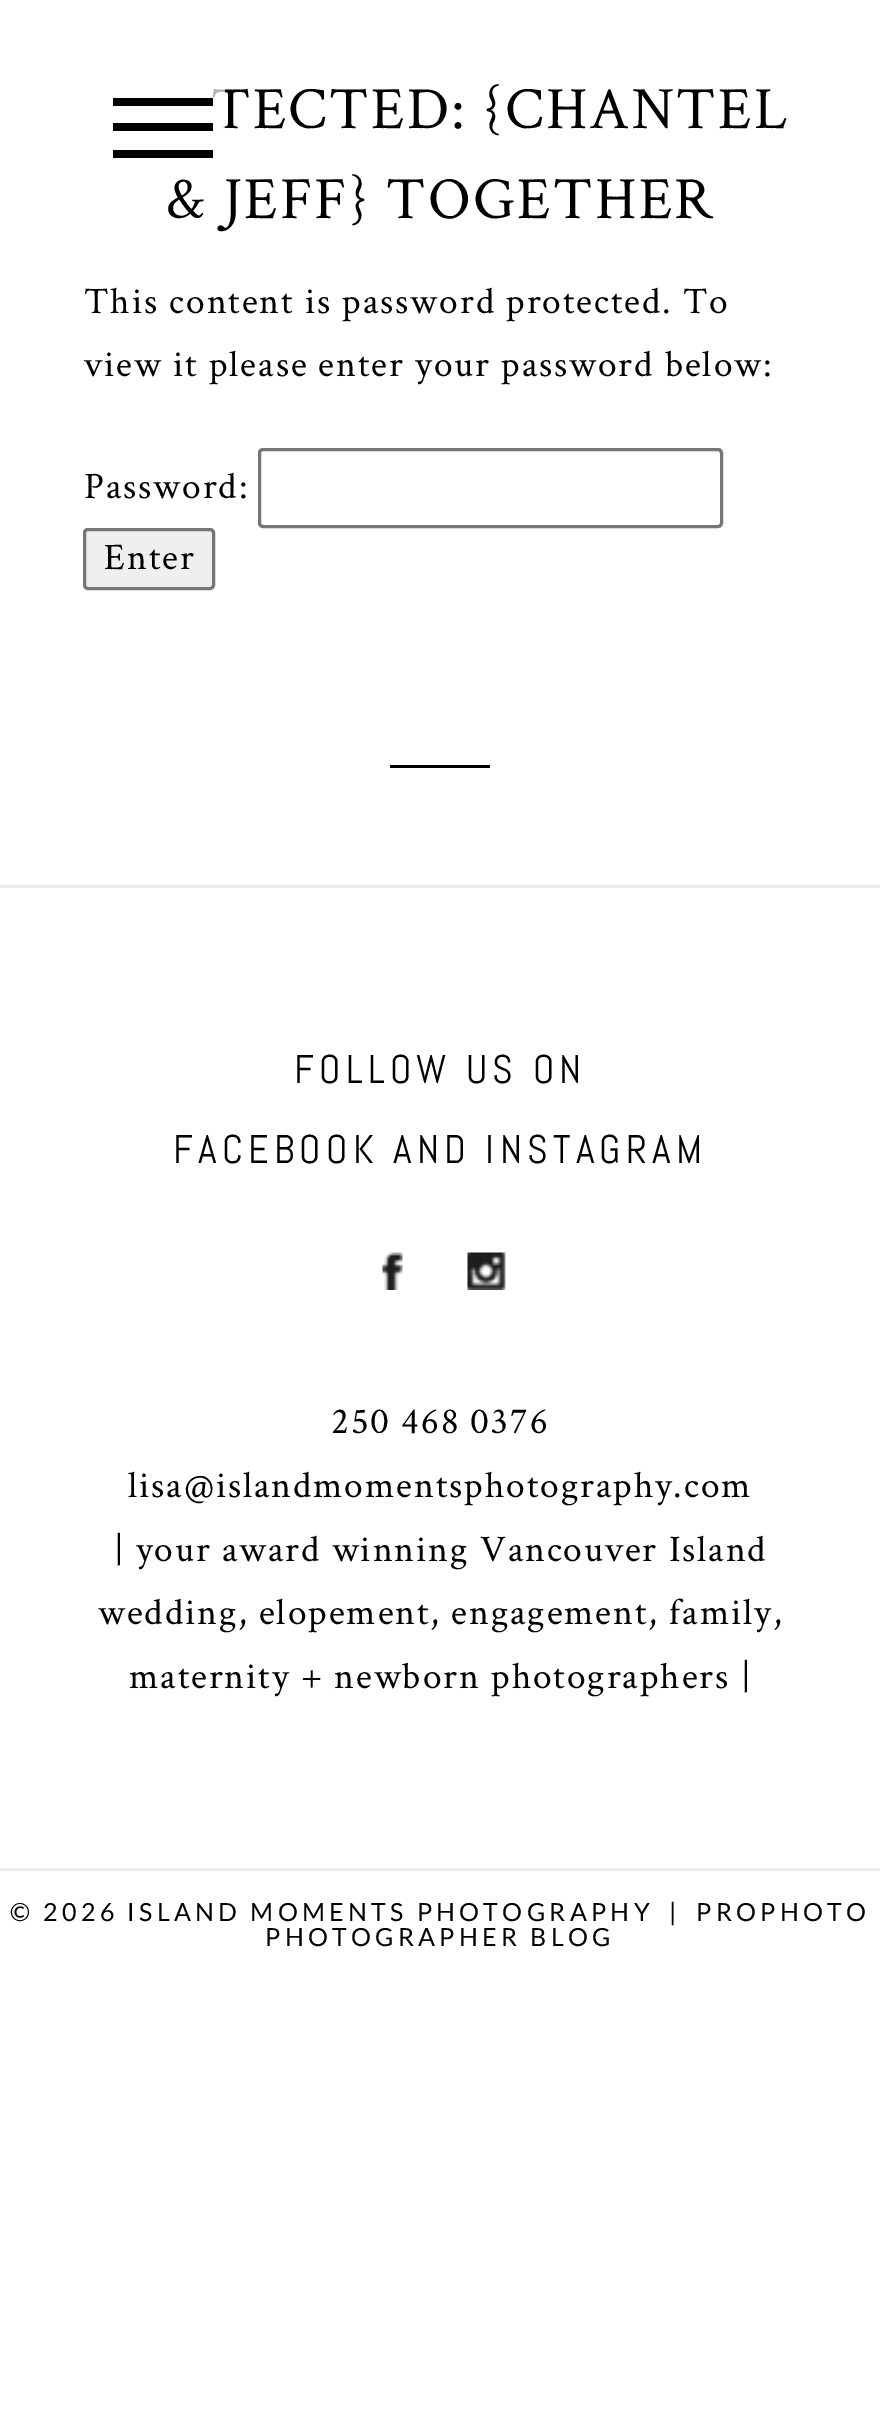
%!PS
<< /PageSize [880 2425] /PageUsesTransparency true >> setpagedevice
/rgb { dup -16 bitshift 255 div exch dup -8 bitshift 255 and 255 div exch 255 and 255 div setrgbcolor } def
/font { [ exch dup neg 0 0 3 -1 roll 0 0 ] selectfont } def
/alpha { dup .setfillconstantalpha .setstrokeconstantalpha } def
/roundrect { 5 dict begin { /r /h /w /y /x } { exch def } forall
  x r add y moveto x w add y 2 copy h add r arct x w add y h add x 1 index r arct
  x y h add x y r arct x y 2 copy exch w add exch r arct closepath end } def
/picture { 5 dict begin { /h /w /y /x /name } { exch def } forall
  gsave x y translate w h scale
  w h 8 [w 0 0 h 0 0] name (r) file false 3 colorimage grestore end } def
0 .pushpdf14devicefilter
0 2425 translate 1 -1 scale
4 setmiterlimit
16#FFFFFF rgb
0 0 880 2425 rectfill
/CrimsonText-Regular 60 font
16#000000 rgb
211 128 moveto 2.4 0 (TECTED: {CHANTEL) ashow
165 218 moveto 2.4 0 (& JEFF} TOGETHER) ashow
/CrimsonText-Regular 37.5 font
84 313 moveto 1.9 0 (This content is password protected. To) ashow
84 376 moveto 1.9 0 (view it please enter your password below:) ashow
84 498 moveto 1.9 0 (Password:) ashow
16#767676 rgb
3 setlinewidth
259.5 449.5 462 77 3.5 roundrect stroke
16#EFEFEF rgb
84.5 529.5 129 59 3.5 roundrect gsave fill grestore
16#767676 rgb
stroke
16#000000 rgb
104 569 moveto 1.9 0 (Enter) ashow
390 765 100 3 rectfill
16#EDEDED rgb
0 885 880 3 rectfill
0 1868 880 3 rectfill
/Abel-Regular 40 font
16#000000 rgb
294 1083 moveto 5.2 0 (FOLLOW US ON) ashow
173 1163 moveto 5.2 0 (FACEBOOK AND INSTAGRAM) ashow
(pic1.raw) 382 1252 21 38 picture
(pic2.raw) 467 1252 39 38 picture
/CrimsonText-Regular 37.5 font
331 1433 moveto 1.9 0 (250 468 0376) ashow
128 1497 moveto 1.9 0 (lisa@islandmomentsphotography.com) ashow
114 1561 moveto 1.9 0 (| your award winning Vancouver Island) ashow
98 1624 moveto 1.9 0 (wedding, elopement, engagement, family,) ashow
129 1688 moveto 1.9 0 (maternity + newborn photographers |) ashow
/Lato-Regular 25 font
10 1921 moveto 4.25 0 (© 2026 ISLAND MOMENTS PHOTOGRAPHY) ashow
669 1921 moveto 4.25 0 (|) ashow
696 1921 moveto 4.25 0 (PROPHOTO) ashow
265 1946 moveto 4.25 0 (PHOTOGRAPHER BLOG) ashow
0.7 alpha
16#FFFFFF rgb
212 88 13 41 rectfill
1 alpha
16#000000 rgb
113 98 100 8 rectfill
113 123 100 8 rectfill
113 150 100 8 rectfill
.poppdf14devicefilter showpage
